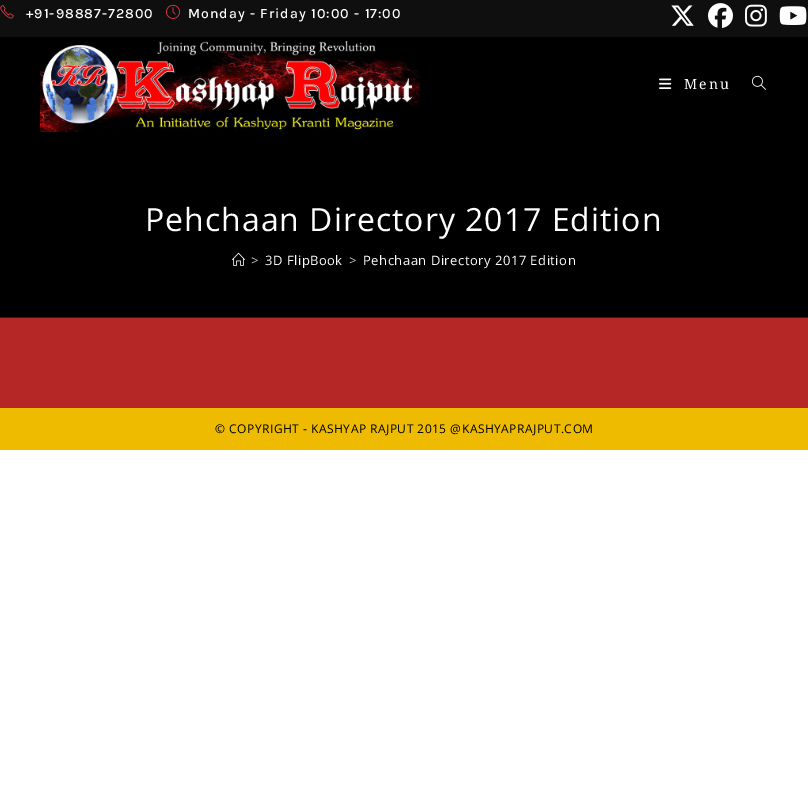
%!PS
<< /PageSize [808 793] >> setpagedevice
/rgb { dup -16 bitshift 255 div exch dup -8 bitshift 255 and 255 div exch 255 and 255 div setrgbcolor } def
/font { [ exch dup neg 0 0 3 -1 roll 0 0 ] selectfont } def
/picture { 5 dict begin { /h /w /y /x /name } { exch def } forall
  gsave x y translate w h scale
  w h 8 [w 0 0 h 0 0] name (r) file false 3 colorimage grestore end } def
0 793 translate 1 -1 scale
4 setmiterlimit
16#FFFFFF rgb
0 0 808 793 rectfill
16#0F0F0F rgb
0 0 808 37 rectfill
(pic1.raw) 0 5 14 14 picture
/Karla-Medium 14 font
16#FFFFFF rgb
26 18 moveto 1 0 (+91-98887-72800) ashow
(pic2.raw) 166 4 14 15 picture
188 18 moveto 1 0 (Monday - Friday 10:00 - 17:00) ashow
(pic3.raw) 671 5 23 21 picture
(pic4.raw) 708 3 25 25 picture
(pic5.raw) 745 4 22 23 picture
(pic6.raw) 779 6 28 19 picture
16#000000 rgb
0 37 808 280 rectfill
(pic7.raw) 40 41 380 91 picture
(pic8.raw) 659 78 13 11 picture
/NotoSerif-Regular 14 font
16#FFFFFF rgb
684 89 moveto 2 0 (Menu) ashow
(pic9.raw) 752 75 14 15 picture
16#222222 rgb
0 317 808 1 rectfill
/OpenSans-Regular 32 font
16#FFFFFF rgb
145 231 moveto 1 0 (Pehchaan Directory 2017 Edition) ashow
(pic10.raw) 232 252 13 14 picture
/OpenSans-Regular 13 font
16#C6C6C6 rgb
251 265 moveto 0.5 0 (>) ashow
16#FFFFFF rgb
265 265 moveto 0.5 0 (3D FlipBook) ashow
16#C6C6C6 rgb
349 265 moveto 0.5 0 (>) ashow
16#FFFFFF rgb
363 265 moveto 0.5 0 (Pehchaan Directory 2017 Edition) ashow
16#B52626 rgb
0 318 808 90 rectfill
16#EFBB00 rgb
0 408 808 42 rectfill
/OpenSans-Regular 12 font
16#000000 rgb
215 433 moveto 0.5 0 (© COPYRIGHT - KASHYAP RAJPUT 2015 @KASHYAPRAJPUT.COM) ashow
showpage
